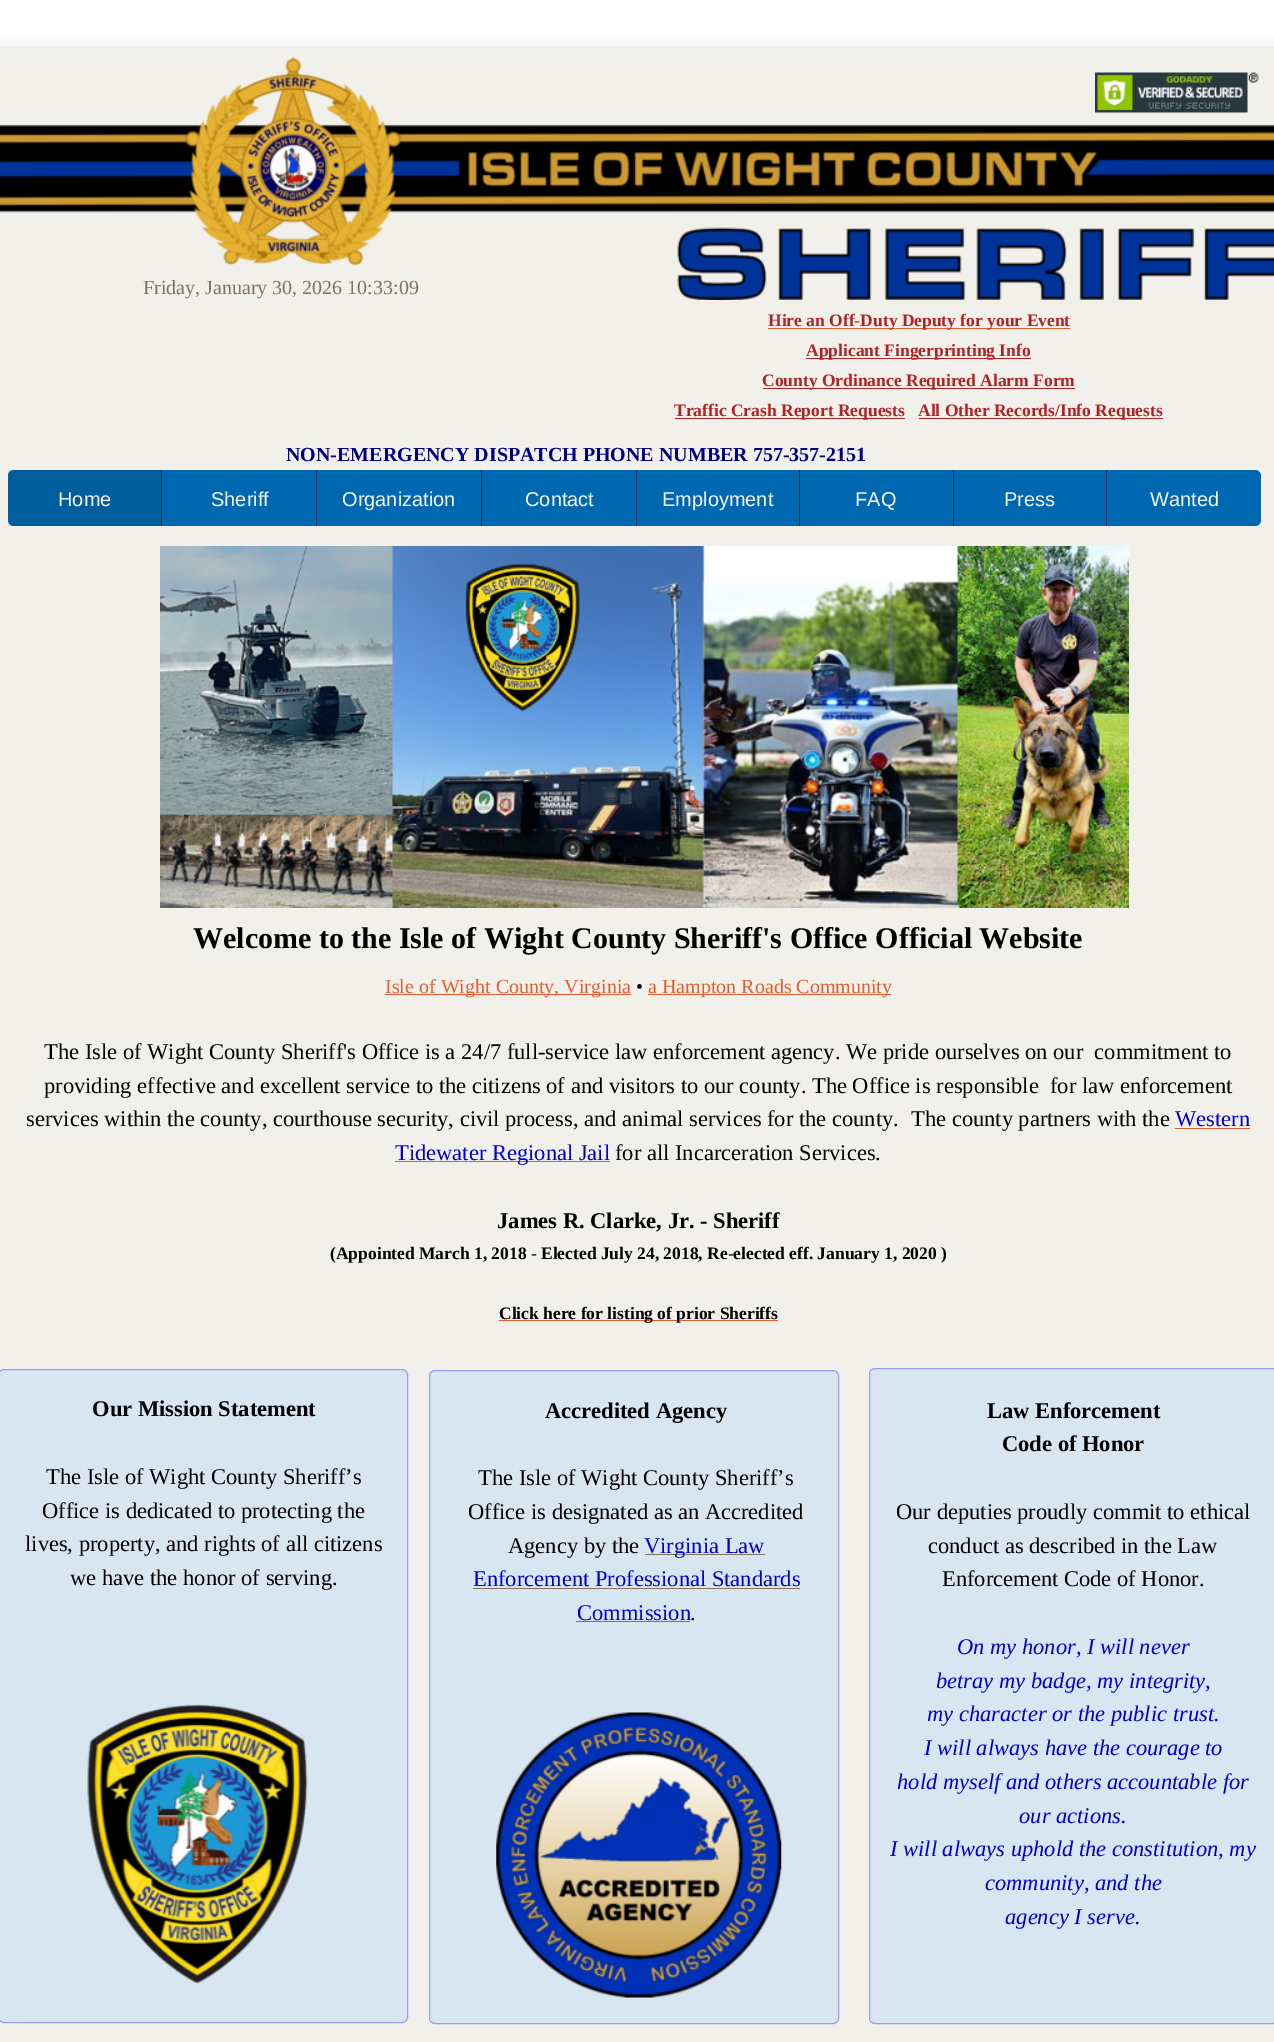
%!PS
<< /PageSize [1274 2042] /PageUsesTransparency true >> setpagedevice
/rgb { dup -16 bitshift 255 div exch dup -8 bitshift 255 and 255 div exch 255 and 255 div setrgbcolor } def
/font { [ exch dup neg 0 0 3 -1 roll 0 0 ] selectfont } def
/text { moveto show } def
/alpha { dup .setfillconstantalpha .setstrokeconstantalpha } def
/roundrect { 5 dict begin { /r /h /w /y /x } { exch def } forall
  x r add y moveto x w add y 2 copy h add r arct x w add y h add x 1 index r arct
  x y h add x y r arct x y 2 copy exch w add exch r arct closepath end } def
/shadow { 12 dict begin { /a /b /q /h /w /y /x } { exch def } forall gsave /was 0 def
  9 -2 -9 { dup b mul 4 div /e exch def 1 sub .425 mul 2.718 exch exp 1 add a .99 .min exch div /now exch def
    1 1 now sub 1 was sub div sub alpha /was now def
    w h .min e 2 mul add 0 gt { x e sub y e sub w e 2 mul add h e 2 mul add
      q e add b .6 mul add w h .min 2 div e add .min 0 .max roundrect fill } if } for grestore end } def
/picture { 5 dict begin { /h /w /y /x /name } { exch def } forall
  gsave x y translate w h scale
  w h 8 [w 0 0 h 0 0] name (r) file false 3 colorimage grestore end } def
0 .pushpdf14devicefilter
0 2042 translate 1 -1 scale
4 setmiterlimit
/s1 { /LiberationSerif-Regular 20 font 16#80745B rgb } def
/s2 { /LiberationSerif-Bold 17.5 font 16#B22222 rgb } def
/s3 { /LiberationSerif-Bold 20 font 16#000080 rgb } def
/s4 { /LiberationSans-Regular 20 font 16#F6F5F2 rgb } def
/s5 { /LiberationSerif-Bold 30 font 16#000000 rgb } def
/s6 { /LiberationSerif-Regular 20 font 16#E15E33 rgb } def
/s7 { /LiberationSerif-Regular 20 font 16#000000 rgb } def
/s8 { /LiberationSerif-Regular 22.5 font 16#000000 rgb } def
/s9 { /LiberationSerif-Regular 22.5 font 16#0000CD rgb } def
/s10 { /LiberationSerif-Bold 22.5 font 16#000000 rgb } def
/s11 { /LiberationSerif-Bold 17.5 font 16#000000 rgb } def
/s12 { /LiberationSerif-Italic 22.5 font 16#0000CD rgb } def
16#FFFFFF rgb
0 0 1274 2042 rectfill
16#323232 rgb
0 59 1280 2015 0 10.5 0.5 shadow
16#F1F0EB rgb
0 50 1274 1992 rectfill
(pic1.raw) 0 56 1274 244 picture
(pic2.raw) 1095 72 164 41 picture
s1
(Friday, January 30, 2026 10:33:09) 143 294 text
16#E15E33 rgb
768 328 302 1 rectfill
s2
(Hire an Off-Duty Deputy for your Event) 768 326 text
806 358 225 1 rectfill
(Applicant Fingerprinting Info) 806 356 text
763 388 312 1 rectfill
(County Ordinance Required Alarm Form) 762 386 text
675 418 230 1 rectfill
(Traffic Crash Report Requests) 674 416 text
919 418 244 1 rectfill
(All Other Records/Info Requests) 918 416 text
s3
(NON-EMERGENCY DISPATCH PHONE NUMBER 757-357-2151) 286 461 text
16#0068B0 rgb
8 470 1253 56 6 roundrect fill
0.1 alpha
16#000000 rgb
8 470 153 56 rectfill
1 alpha
s4
(Home) 58 506 text
16#003255 rgb
161 470 1 56 rectfill
s4
(Sheriff) 211 506 text
16#003255 rgb
316 470 1 56 rectfill
s4
(Organization) 342 506 text
16#003255 rgb
481 470 1 56 rectfill
s4
(Contact) 525 506 text
16#003255 rgb
636 470 1 56 rectfill
s4
(Employment) 662 506 text
16#003255 rgb
799 470 1 56 rectfill
s4
(FAQ) 855 506 text
16#003255 rgb
953 470 1 56 rectfill
s4
(Press) 1004 506 text
16#003255 rgb
1106 470 1 56 rectfill
s4
(Wanted) 1150 506 text
(pic3.raw) 160 546 969 362 picture
s5
(Welcome to the Isle of Wight County Sheriff's Office Official Website) 193 948 text
16#E15E33 rgb
385 994 246 1 rectfill
s6
(Isle of Wight County, Virginia) 385 993 text
s7
(•) 636 993 text
16#E15E33 rgb
648 994 243 1 rectfill
(a Hampton Roads Community) 648 993 text
s8
(The Isle of Wight County Sheriff's Office is a 24/7 full-service law enforcement agency. We pride ourselves on our  commitment to) 44 1059 text
(providing effective and excellent service to the citizens of and visitors to our county. The Office is responsible  for law enforcement) 44 1093 text
(services within the county, courthouse security, civil process, and animal services for the county.) 26 1126 text
(The county partners with the) 911 1126 text
s9
(Western) 1175 1126 text
16#E15E33 rgb
1175 1128 75 1 rectfill
395 1161 215 1 rectfill
s9
(Tidewater Regional Jail) 395 1160 text
s8
(for all Incarceration Services.) 615 1160 text
s10
(James R. Clarke, Jr. - Sheriff) 497 1228 text
s11
(\(Appointed March 1, 2018 - Elected July 24, 2018, Re-elected eff. January 1, 2020 \)) 330 1259 text
16#E15E33 rgb
499 1320 279 1 rectfill
s11
(Click here for listing of prior Sheriffs) 499 1319 text
16#D8E6F2 rgb
-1.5 1369.5 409 653 5.5 roundrect gsave fill grestore
16#9D9CF2 rgb
stroke
16#D8E6F2 rgb
429.5 1370.5 409 653 5.5 roundrect gsave fill grestore
16#9D9CF2 rgb
stroke
16#D8E6F2 rgb
869.5 1368.5 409 655 5.5 roundrect gsave fill grestore
16#9D9CF2 rgb
stroke
s10
(Our Mission Statement) 92 1416 text
s8
(The Isle of Wight County Sheriff’s) 46 1484 text
(Office is dedicated to protecting the) 42 1518 text
(lives, property, and rights of all citizens) 25 1551 text
(we have the honor of serving.) 70 1585 text
s10
(Accredited Agency) 545 1418 text
s8
(The Isle of Wight County Sheriff’s) 478 1485 text
(Office is designated as an Accredited) 468 1519 text
(Agency by the) 508 1553 text
16#80745B rgb
645 1554 120 1 rectfill
s9
(Virginia Law) 644 1553 text
(Enforcement Professional Standards) 473 1586 text
16#80745B rgb
473 1588 327 1 rectfill
s9
(Commission) 577 1620 text
s8
(.) 690 1620 text
16#80745B rgb
576 1621 114 1 rectfill
s10
(Law Enforcement) 987 1418 text
(Code of Honor) 1002 1451 text
s8
(Our deputies proudly commit to ethical) 896 1519 text
(conduct as described in the Law) 928 1553 text
(Enforcement Code of Honor.) 942 1586 text
s12
(On my honor, I will never) 957 1654 text
(betray my badge, my integrity,) 936 1688 text
(my character or the public trust.) 927 1721 text
(I will always have the courage to) 924 1755 text
(hold myself and others accountable for) 897 1789 text
(our actions.) 1019 1823 text
(I will always uphold the constitution, my) 890 1856 text
(community, and the) 985 1890 text
(agency I serve.) 1005 1924 text
(pic4.raw) 87 1704 221 280 picture
(pic5.raw) 496 1712 286 286 picture
.poppdf14devicefilter showpage
